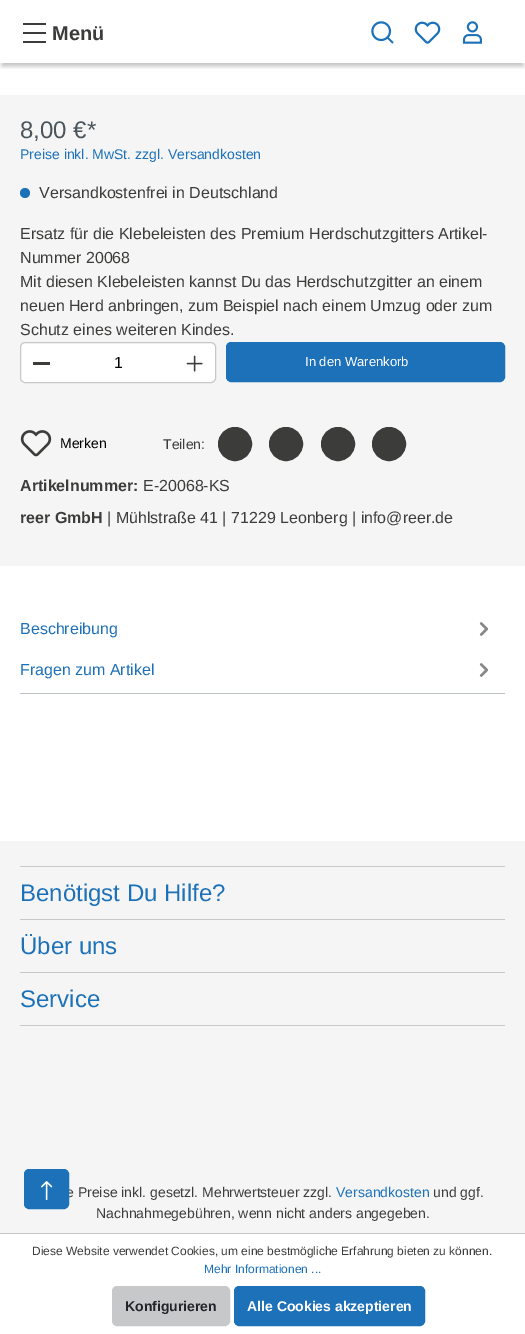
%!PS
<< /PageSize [525 1334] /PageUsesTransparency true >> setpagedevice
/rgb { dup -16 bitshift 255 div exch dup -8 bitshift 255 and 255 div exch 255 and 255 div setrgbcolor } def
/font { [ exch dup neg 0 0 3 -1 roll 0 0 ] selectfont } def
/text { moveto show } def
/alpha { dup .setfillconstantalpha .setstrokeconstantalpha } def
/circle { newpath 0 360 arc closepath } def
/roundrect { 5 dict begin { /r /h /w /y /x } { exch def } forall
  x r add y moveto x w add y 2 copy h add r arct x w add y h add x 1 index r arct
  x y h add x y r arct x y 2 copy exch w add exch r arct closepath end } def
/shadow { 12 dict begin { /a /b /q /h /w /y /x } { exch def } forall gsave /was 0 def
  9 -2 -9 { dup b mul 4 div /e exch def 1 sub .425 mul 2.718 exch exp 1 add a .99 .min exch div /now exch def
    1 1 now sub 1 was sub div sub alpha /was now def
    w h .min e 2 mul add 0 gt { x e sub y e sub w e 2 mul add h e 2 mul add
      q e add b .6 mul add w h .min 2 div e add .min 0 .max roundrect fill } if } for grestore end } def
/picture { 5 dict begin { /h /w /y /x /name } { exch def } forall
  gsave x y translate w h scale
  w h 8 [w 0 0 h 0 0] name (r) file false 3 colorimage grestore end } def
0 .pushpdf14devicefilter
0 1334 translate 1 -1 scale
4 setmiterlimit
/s1 { /LiberationSans-Bold 20 font 16#3C3C3B rgb } def
/s2 { /LiberationSans-Regular 24 font 16#4A545B rgb } def
/s3 { /LiberationSans-Regular 14 font 16#1D71B8 rgb } def
/s4 { /LiberationSans-Regular 16 font 16#3C3C3B rgb } def
/s5 { /LiberationSans-Regular 16 font 16#000000 rgb } def
/s6 { /LiberationSans-Regular 13 font 16#FFFFFF rgb } def
/s7 { /LiberationSans-Regular 14 font 16#000000 rgb } def
/s8 { /LiberationSans-Regular 14 font 16#3C3C3B rgb } def
/s9 { /LiberationSans-Bold 16 font 16#3C3C3B rgb } def
/s10 { /LiberationSans-Regular 16 font 16#1D71B8 rgb } def
/s11 { /LiberationSans-Regular 24 font 16#1D71B8 rgb } def
/s12 { /LiberationSans-Regular 12 font 16#3C3C3B rgb } def
/s13 { /LiberationSans-Regular 12 font 16#1D71B8 rgb } def
/s14 { /LiberationSans-Bold 14 font 16#212529 rgb } def
/s15 { /LiberationSans-Bold 14 font 16#FFFFFF rgb } def
16#FFFFFF rgb
0 0 525 1334 rectfill
16#3C3C3B rgb
23 23 23 2 rectfill
23 32 23 2 rectfill
23 41 23 2 rectfill
s1
(Menü) 52 40 text
(pic1.raw) 371 21 23 23 picture
(pic2.raw) 414 21 27 23 picture
(pic3.raw) 462 21 20 23 picture
gsave
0 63 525 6 rectclip
16#000000 rgb
2 59 521 7 0 2.5 0.25 shadow
grestore
16#F5F5F5 rgb
0 95 525 471 rectfill
s2
(8,00 €*) 20 138 text
s3
(Preise inkl. MwSt. zzgl. Versandkosten) 20 159 text
25 193 5 circle fill
s4
(Versandkostenfrei in Deutschland) 39 198 text
(Ersatz für die Klebeleisten des Premium Herdschutzgitters Artikel-) 20 239 text
(Nummer 20068) 20 263 text
(Mit diesen Klebeleisten kannst Du das Herdschutzgitter an einem) 20 287 text
(neuen Herd anbringen, zum Beispiel nach einem Umzug oder zum) 20 311 text
(Schutz eines weiteren Kindes.) 20 335 text
16#FFFFFF rgb
20.5 342.5 195 40 4.5 roundrect gsave fill grestore
16#C7C8CA rgb
stroke
16#3C3C3B rgb
33 362 17 3 rectfill
s5
(1) 114 368 text
(pic4.raw) 186 355 17 17 picture
16#1D71B8 rgb
226.5 342.5 278 39 4.5 roundrect gsave fill grestore
stroke
s6
(In den Warenkorb) 305 366 text
(pic5.raw) 20 430 32 27 picture
s7
(Merken) 60 448 text
s8
(Teilen:) 163 449 text
235 444 16.5 circle gsave fill grestore
stroke
286 444 16.5 circle gsave fill grestore
stroke
338 444 16.5 circle gsave fill grestore
stroke
389 444 16.5 circle gsave fill grestore
stroke
s9
(Artikelnummer:) 20 491 text
s4
(E-20068-KS) 143 491 text
s9
(reer GmbH) 20 523 text
s4
(| Mühlstraße 41 | 71229 Leonberg | info@reer.de) 107 523 text
16#BCC1C7 rgb
20 693 485 1 rectfill
s10
(Beschreibung) 20 634 text
(pic6.raw) 479 622 10 14 picture
(Fragen zum Artikel) 20 675 text
(pic6.raw) 479 663 10 14 picture
16#F5F5F5 rgb
0 841 525 392 rectfill
16#C7C8CA rgb
20 866 485 1 rectfill
s11
(Benötigst Du Hilfe?) 20 901 text
16#C7C8CA rgb
20 919 485 1 rectfill
s11
(Über uns) 20 954 text
16#C7C8CA rgb
20 972 485 1 rectfill
s11
(Service) 20 1007 text
16#C7C8CA rgb
20 1025 485 1 rectfill
s8
(e Preise inkl. gesetzl. Mehrwertsteuer zzgl.) 66 1197 text
s3
(Versandkosten) 336 1197 text
s8
(und ggf.) 433 1197 text
(Nachnahmegebühren, wenn nicht anders angegeben.) 96 1218 text
16#1D71B8 rgb
24.5 1169.5 44 39 4.5 roundrect gsave fill grestore
stroke
(pic7.raw) 41 1181 12 19 picture
16#C7C8CA rgb
0 1233 525 1 rectfill
s12
(Diese Website verwendet Cookies, um eine bestmögliche Erfahrung bieten zu können.) 32 1255 text
s13
(Mehr Informationen ...) 204 1273 text
16#C7C8CA rgb
112.5 1286.5 117 39 4.5 roundrect gsave fill grestore
stroke
s14
(Konfigurieren) 125 1311 text
16#1D71B8 rgb
234.5 1286.5 190 39 4.5 roundrect gsave fill grestore
stroke
s15
(Alle Cookies akzeptieren) 247 1311 text
.poppdf14devicefilter showpage
